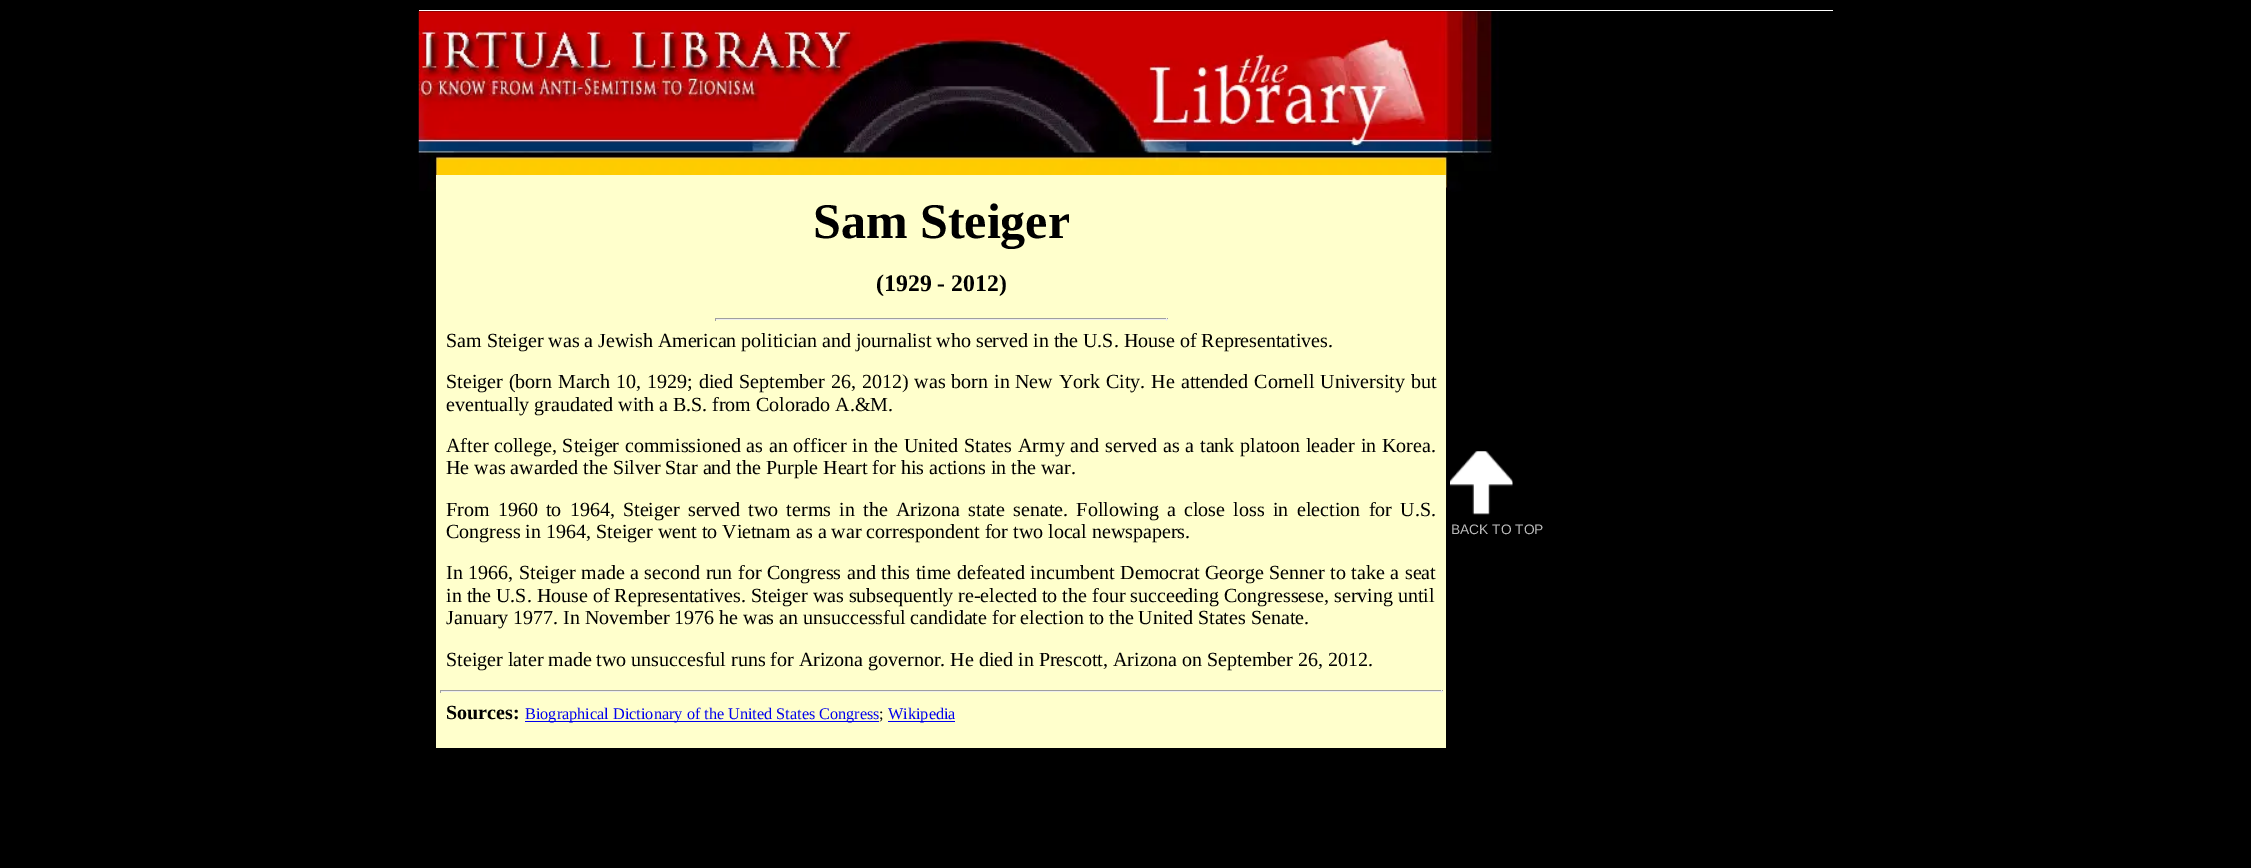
%!PS
<< /PageSize [2251 868] >> setpagedevice
/rgb { dup -16 bitshift 255 div exch dup -8 bitshift 255 and 255 div exch 255 and 255 div setrgbcolor } def
/font { [ exch dup neg 0 0 3 -1 roll 0 0 ] selectfont } def
/text { moveto show } def
/picture { 5 dict begin { /h /w /y /x /name } { exch def } forall
  gsave x y translate w h scale
  w h 8 [w 0 0 h 0 0] name (r) file false 3 colorimage grestore end } def
0 868 translate 1 -1 scale
4 setmiterlimit
/s1 { /LiberationSerif-Bold 50 font 16#000000 rgb } def
/s2 { /LiberationSerif-Bold 23.75 font 16#000000 rgb } def
/s3 { /LiberationSerif-Regular 20 font 16#000000 rgb } def
/s4 { /LiberationSerif-Bold 20 font 16#000000 rgb } def
/s5 { /LiberationSerif-Regular 16.25 font 16#0000EE rgb } def
/s6 { /LiberationSerif-Regular 16.25 font 16#000000 rgb } def
/s7 { /LiberationSans-Regular 13.75 font 16#BBBBBB rgb } def
16#000000 rgb
0 0 2251 868 rectfill
16#FFFFFF rgb
419 10 1414 1 rectfill
(pic1.raw) 418 11 1081 181 picture
16#FFFFCC rgb
436 175 1010 573 rectfill
s1
(Sam Steiger) 813 238 text
s2
(\(1929 - 2012\)) 876 291 text
16#9F9F9F rgb
715 318 453 1 rectfill
16#EEEEEE rgb
1166 318 1 3 rectfill
715 319 453 1 rectfill
16#9F9F9F rgb
715 318 1 3 rectfill
s3
(Sam Steiger was a Jewish American politician and journalist who served in the U.S. House of Representatives.) 446 347 text
446 388 moveto 1 0 32 (Steiger \(born March 10, 1929; died September 26, 2012\) was born in) widthshow
1015 388 moveto 1 0 32 (New York City. He attended Cornell University but) widthshow
(eventually graudated with a B.S. from Colorado A.&M.) 446 411 text
446 452 moveto 0.75 0 32 (After college, Steiger) widthshow
625 452 moveto 0.75 0 32 (commissioned as an officer in the United States) widthshow
1018 452 moveto 0.75 0 32 (Army and served as a tank platoon leader in Korea.) widthshow
(He was awarded the Silver Star and the Purple Heart for his actions in the war.) 446 474 text
446 516 moveto 3.25 0 32 (From 1960 to 1964, Steiger served two terms in the Arizona state senate. Following a close loss in) widthshow
1297 516 moveto 3.25 0 32 (election for U.S.) widthshow
(Congress in 1964, Steiger went to Vietnam as a war correspondent for two local newspapers.) 446 538 text
446 579 moveto 0.6 0 32 (In 1966, Steiger made a second run for Congress and this time defeated incumbent Democrat George Senner to take a seat) widthshow
(in the U.S. House of Representatives. Steiger was subsequently re-elected to the four succeeding Congressese, serving until) 446 602 text
(January 1977. In November 1976 he was an unsuccessful candidate for election to the United States Senate.) 446 624 text
(Steiger later made two unsuccesful runs for Arizona governor. He died in Prescott, Arizona on September 26, 2012.) 446 666 text
16#9F9F9F rgb
440 690 1003 1 rectfill
16#EEEEEE rgb
1441 690 1 3 rectfill
440 691 1003 1 rectfill
16#9F9F9F rgb
440 690 1 3 rectfill
s4
(Sources:) 446 719 text
16#0000EE rgb
525 721 354 1 rectfill
s5
(Biographical Dictionary of the United States Congress) 525 719 text
s6
(;) 879 719 text
16#0000EE rgb
888 721 67 1 rectfill
(Wikipedia) 888 719 text
(pic2.raw) 1450 451 63 64 picture
s7
(BACK TO TOP) 1451 534 text
showpage
